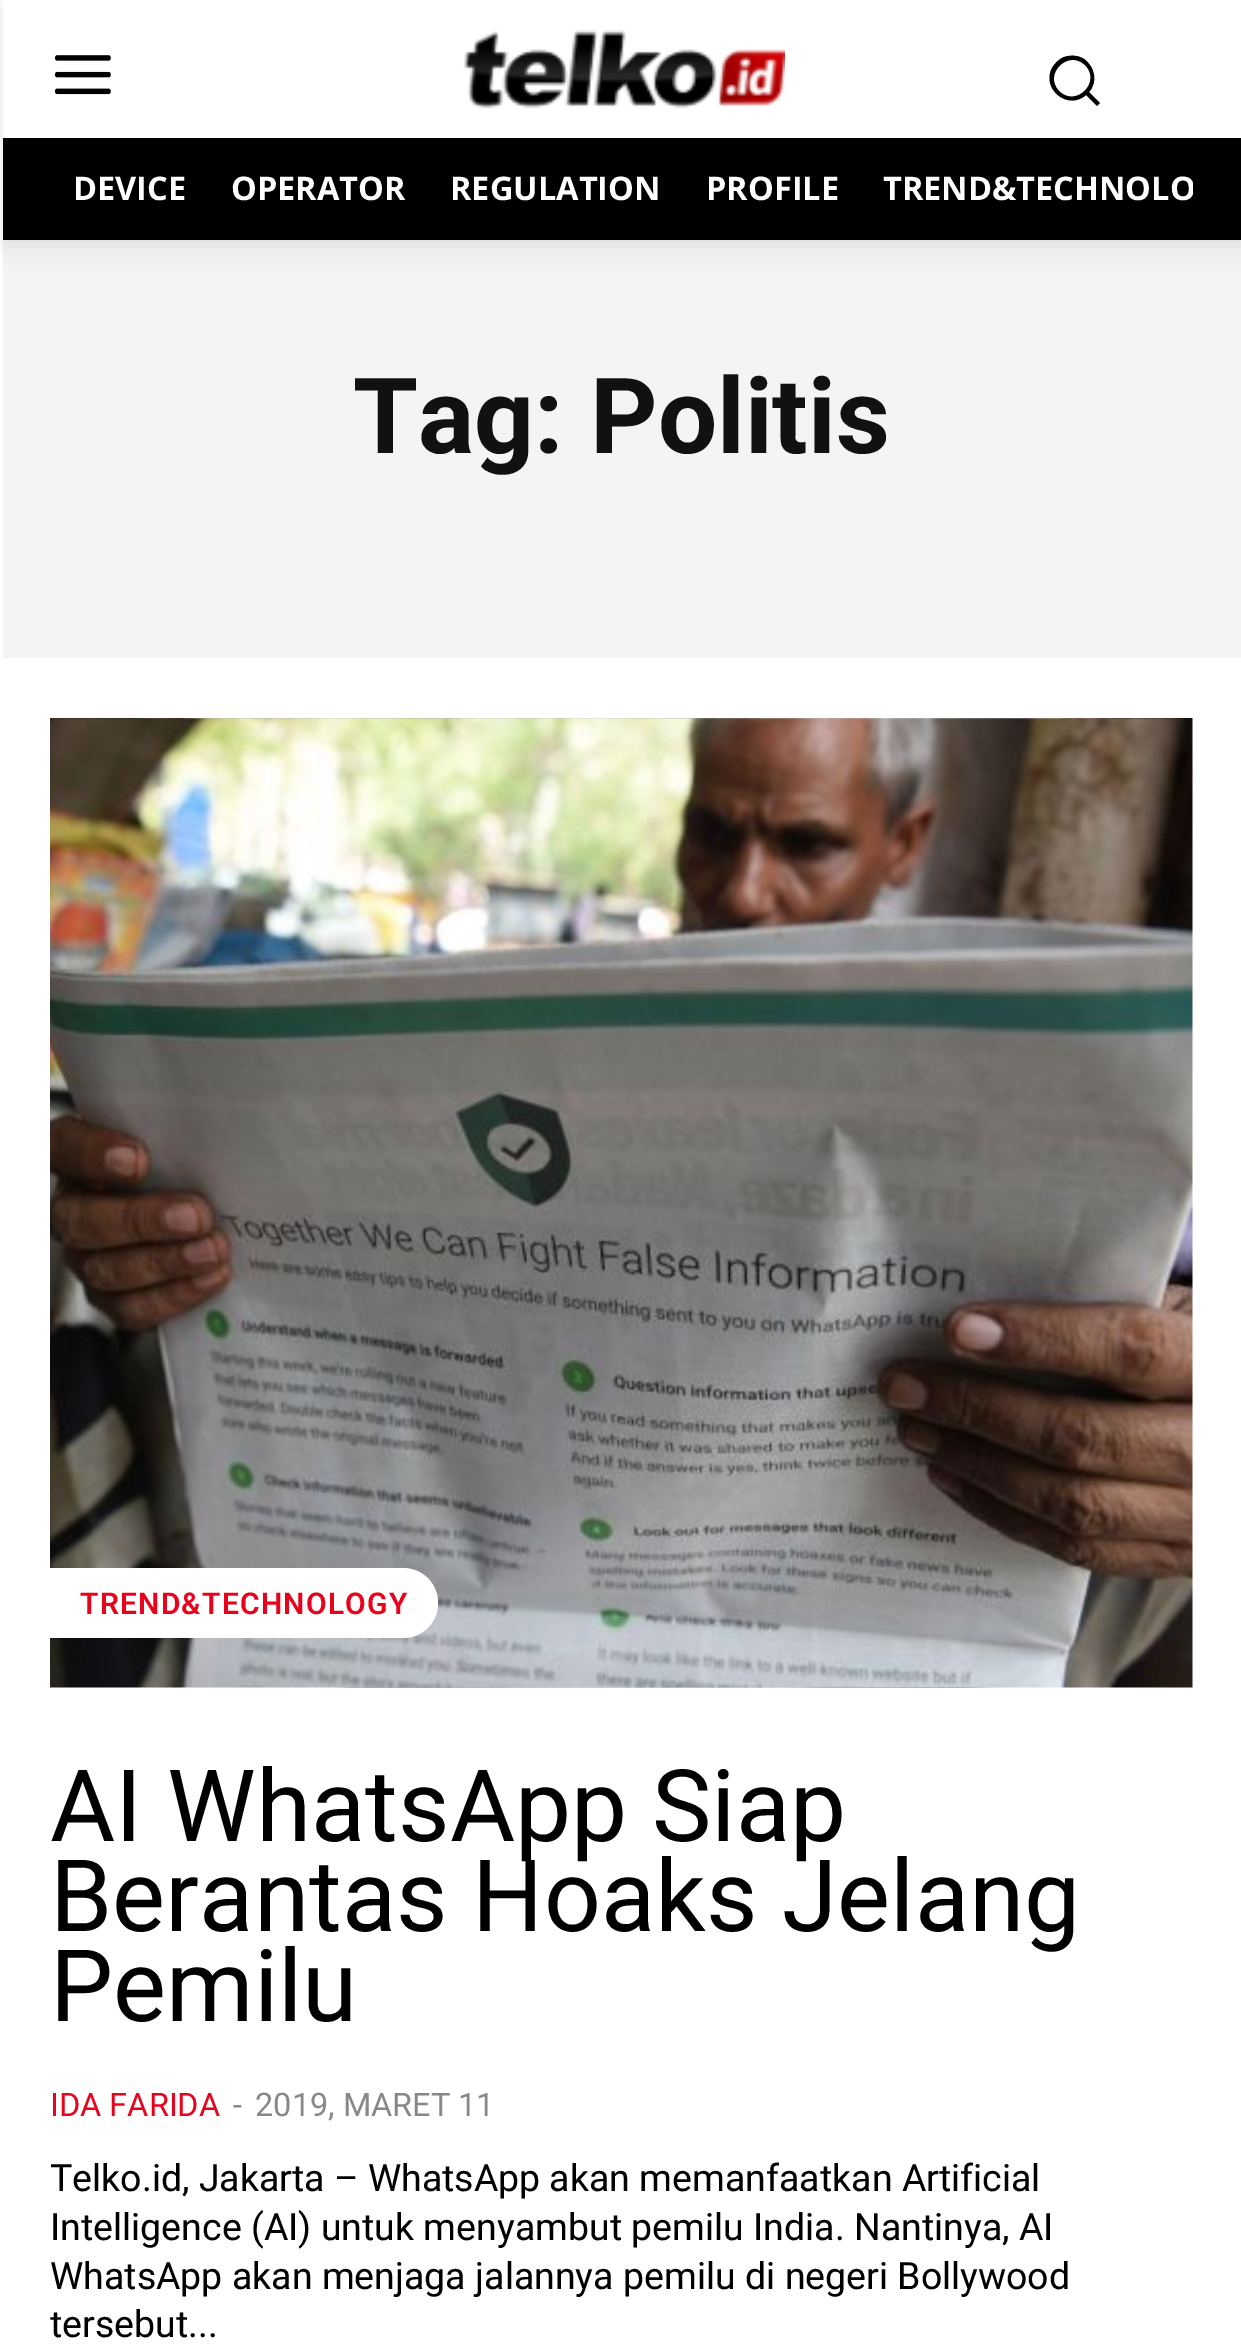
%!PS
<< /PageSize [1241 2347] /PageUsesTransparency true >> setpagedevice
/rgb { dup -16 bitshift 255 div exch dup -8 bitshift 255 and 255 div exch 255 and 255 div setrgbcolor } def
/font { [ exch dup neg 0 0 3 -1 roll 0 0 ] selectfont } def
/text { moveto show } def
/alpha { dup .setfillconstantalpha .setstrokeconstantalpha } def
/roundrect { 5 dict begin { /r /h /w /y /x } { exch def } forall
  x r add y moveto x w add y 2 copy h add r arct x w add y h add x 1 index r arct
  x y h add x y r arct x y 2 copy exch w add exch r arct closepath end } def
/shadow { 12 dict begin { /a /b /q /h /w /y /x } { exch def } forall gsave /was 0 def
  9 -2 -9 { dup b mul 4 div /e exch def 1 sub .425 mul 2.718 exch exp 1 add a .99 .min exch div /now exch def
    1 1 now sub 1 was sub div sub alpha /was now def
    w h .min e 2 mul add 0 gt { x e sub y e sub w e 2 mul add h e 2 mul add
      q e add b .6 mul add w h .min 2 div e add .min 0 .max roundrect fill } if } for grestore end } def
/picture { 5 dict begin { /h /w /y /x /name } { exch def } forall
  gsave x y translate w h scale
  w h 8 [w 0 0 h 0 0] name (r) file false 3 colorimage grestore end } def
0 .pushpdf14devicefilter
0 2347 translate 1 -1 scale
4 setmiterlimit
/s1 { /OpenSans-Bold 32.5 font 16#FFFFFF rgb } def
/s2 { /Roboto-Bold 105 font 16#111111 rgb } def
/s3 { /Roboto-Regular 100 font 16#000000 rgb } def
/s4 { /Roboto-Regular 32.5 font 16#E8021C rgb } def
/s5 { /Roboto-Regular 32.5 font 16#888888 rgb } def
/s6 { /Roboto-Regular 37.5 font 16#000000 rgb } def
16#FFFFFF rgb
0 0 1241 2347 rectfill
(pic1.raw) 55 55 56 40 picture
(pic2.raw) 463 29 322 80 picture
16#000000 rgb
1100 103 moveto 1089 92 lineto 1098 82 1095 67 1084 59 curveto 1078 55 1070 55 1064 57 curveto 1059 59 1055 63 1052 68 curveto 1041 89 1068 111 1086 95 curveto 1097 106 lineto closepath 1059 91 moveto 1043 74 1068 49 1085 65 curveto 1102 82 1076 108 1059 91 curveto closepath fill
3 138 1238 102 rectfill
16#F4F4F4 rgb
3 240 1238 418 rectfill
gsave
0 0 moveto 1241 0 lineto 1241 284 lineto 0 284 lineto closepath 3 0 moveto 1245 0 lineto 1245 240 lineto 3 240 lineto closepath eoclip newpath
16#000000 rgb
3 5 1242 240 0 12.5 0.09 shadow
grestore
s1
(DEVICE) 73 200 text
(OPERATOR) 231 200 text
(REGULATION) 450 200 text
(PROFILE) 706 200 text
gsave
50 138 1143 102 rectclip
(TREND&TECHNOLO) 883 200 text
grestore
s2
(Tag: Politis) 353 453 text
(pic4.raw) 334 1687 665 1 picture
(pic3.raw) 50 718 1143 970 picture
16#FFFFFF rgb
50 1568 moveto 403 1568 lineto 422.5 1568 438 1583.5 438 1603 curveto 438 1622.5 422.5 1638 403 1638 curveto 50 1638 lineto closepath fill
/Roboto-SemiBold 30 font
16#E8021C rgb
80 1614 moveto 1.25 0 (TREND&TECHNOLOGY) ashow
s3
(AI WhatsApp Siap) 50 1841 text
(Berantas Hoaks Jelang) 50 1931 text
(Pemilu) 50 2021 text
s4
(IDA FARIDA) 50 2116 text
s5
(-) 233 2116 text
(2019, MARET 11) 255 2116 text
s6
(Telko.id, Jakarta – WhatsApp akan memanfaatkan Artificial) 50 2191 text
(Intelligence \(AI\) untuk menyambut pemilu India. Nantinya, AI) 50 2240 text
(WhatsApp akan menjaga jalannya pemilu di negeri Bollywood) 50 2289 text
(tersebut...) 50 2337 text
.poppdf14devicefilter showpage
